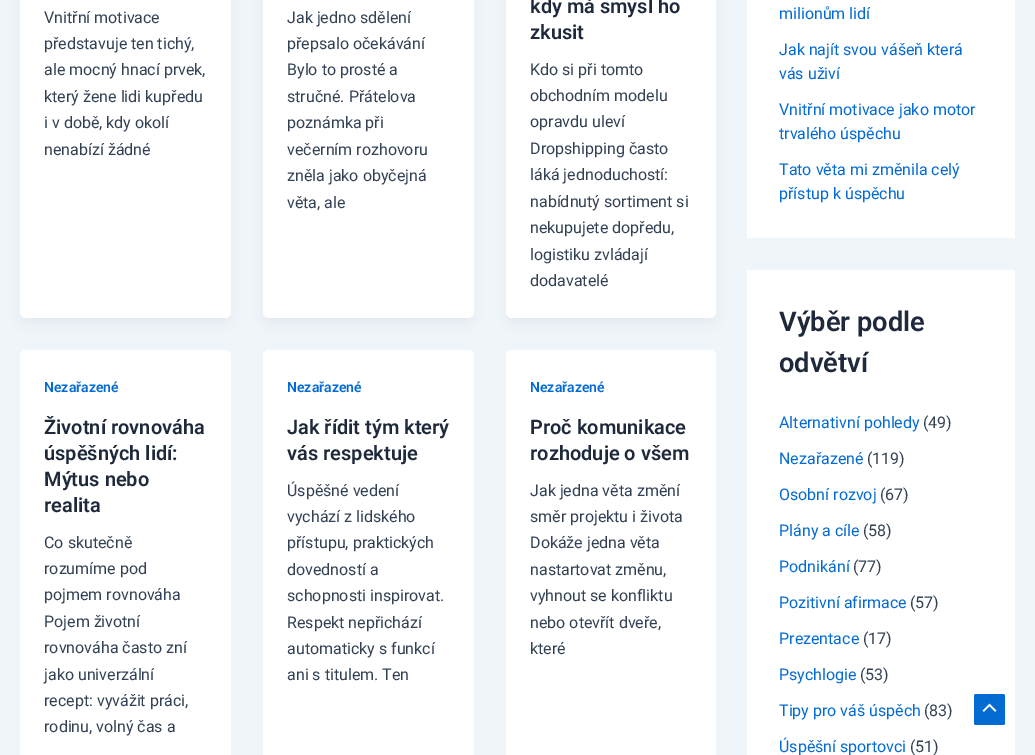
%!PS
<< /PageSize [1035 755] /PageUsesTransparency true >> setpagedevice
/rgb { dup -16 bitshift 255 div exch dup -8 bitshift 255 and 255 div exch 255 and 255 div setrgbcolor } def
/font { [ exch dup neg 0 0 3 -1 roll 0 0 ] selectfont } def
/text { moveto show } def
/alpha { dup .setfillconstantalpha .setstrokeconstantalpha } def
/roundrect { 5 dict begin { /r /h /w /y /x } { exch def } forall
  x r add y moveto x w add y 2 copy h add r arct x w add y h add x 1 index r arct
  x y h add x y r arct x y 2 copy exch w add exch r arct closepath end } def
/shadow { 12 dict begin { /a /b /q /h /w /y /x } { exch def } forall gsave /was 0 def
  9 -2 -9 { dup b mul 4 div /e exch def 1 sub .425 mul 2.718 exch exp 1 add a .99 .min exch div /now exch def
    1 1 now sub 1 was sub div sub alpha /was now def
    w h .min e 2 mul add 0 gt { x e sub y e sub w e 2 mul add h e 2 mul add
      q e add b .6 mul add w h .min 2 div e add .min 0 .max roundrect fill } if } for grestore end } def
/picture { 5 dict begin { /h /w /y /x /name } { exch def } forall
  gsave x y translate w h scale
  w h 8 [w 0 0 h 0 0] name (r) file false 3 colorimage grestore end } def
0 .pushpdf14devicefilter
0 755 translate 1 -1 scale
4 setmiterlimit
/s1 { /Roboto-Regular 16 font 16#334155 rgb } def
/s2 { /Roboto-SemiBold 20 font 16#1E293B rgb } def
/s3 { /Roboto-SemiBold 14 font 16#046BD2 rgb } def
/s4 { /Roboto-Regular 16 font 16#046BD2 rgb } def
/s5 { /Roboto-SemiBold 27.25 font 16#1E293B rgb } def
16#F0F5FA rgb
0 0 1035 755 rectfill
16#101828 rgb
22 -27 207 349 4 7.5 0.05 shadow
16#FFFFFF rgb
20 -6 211 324 6 roundrect fill
s1
(Vnitřní motivace) 44 23 text
(představuje ten tichý,) 44 49 text
(ale mocný hnací prvek,) 44 75 text
(který žene lidi kupředu) 44 102 text
(i v době, kdy okolí) 44 128 text
(nenabízí žádné) 44 155 text
16#101828 rgb
265 -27 207 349 4 7.5 0.05 shadow
16#FFFFFF rgb
263 -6 211 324 6 roundrect fill
s1
(Jak jedno sdělení) 287 23 text
(přepsalo očekávání) 287 49 text
(Bylo to prosté a) 287 75 text
(stručné. Přátelova) 287 102 text
(poznámka při) 287 128 text
(večerním rozhovoru) 287 155 text
(zněla jako obyčejná) 287 181 text
(věta, ale) 287 208 text
16#101828 rgb
508 -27 206 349 4 7.5 0.05 shadow
16#FFFFFF rgb
506 -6 210 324 6 roundrect fill
s2
(kdy má smysl ho) 530 13 text
(zkusit) 530 39 text
s1
(Kdo si při tomto) 530 75 text
(obchodním modelu) 530 101 text
(opravdu uleví) 530 127 text
(Dropshipping často) 530 154 text
(láká jednoduchostí:) 530 180 text
(nabídnutý sortiment si) 530 207 text
(nekupujete dopředu,) 530 233 text
(logistiku zvládají) 530 260 text
(dodavatelé) 530 286 text
16#FFFFFF rgb
20 350 211 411 6 roundrect fill
s3
(Nezařazené) 44 392 text
s2
(Životní rovnováha) 44 434 text
(úspěšných lidí:) 44 460 text
(Mýtus nebo) 44 486 text
(realita) 44 512 text
s1
(Co skutečně) 44 548 text
(rozumíme pod) 44 574 text
(pojmem rovnováha) 44 600 text
(Pojem životní) 44 627 text
(rovnováha často zní) 44 653 text
(jako univerzální) 44 680 text
(recept: vyvážit práci,) 44 706 text
(rodinu, volný čas a) 44 732 text
16#FFFFFF rgb
263 350 211 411 6 roundrect fill
s3
(Nezařazené) 287 392 text
s2
(Jak řídit tým který) 287 434 text
(vás respektuje) 287 460 text
s1
(Úspěšné vedení) 287 496 text
(vychází z lidského) 287 522 text
(přístupu, praktických) 287 548 text
(dovedností a) 287 575 text
(schopnosti inspirovat.) 287 601 text
(Respekt nepřichází) 287 628 text
(automaticky s funkcí) 287 654 text
(ani s titulem. Ten) 287 680 text
16#FFFFFF rgb
506 350 210 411 6 roundrect fill
s3
(Nezařazené) 530 392 text
s2
(Proč komunikace) 530 434 text
(rozhoduje o všem) 530 460 text
s1
(Jak jedna věta změní) 530 496 text
(směr projektu i života) 530 522 text
(Dokáže jedna věta) 530 548 text
(nastartovat změnu,) 530 575 text
(vyhnout se konfliktu) 530 601 text
(nebo otevřít dveře,) 530 628 text
(které) 530 654 text
16#FFFFFF rgb
747 0 268 238 rectfill
s4
(milionům lidí) 779 19 text
(Jak najít svou vášeň která) 779 55 text
(vás uživí) 779 79 text
(Vnitřní motivace jako motor) 779 115 text
(trvalého úspěchu) 779 139 text
(Tato věta mi změnila celý) 779 175 text
(přístup k úspěchu) 779 199 text
16#FFFFFF rgb
747 270 268 485 rectfill
s5
(Výběr podle) 779 331 text
(odvětví) 779 372 text
s4
(Alternativní pohledy) 779 428 text
s1
(\(49\)) 923 428 text
s4
(Nezařazené) 779 464 text
s1
(\(119\)) 867 464 text
s4
(Osobní rozvoj) 779 500 text
s1
(\(67\)) 880 500 text
s4
(Plány a cíle) 779 536 text
s1
(\(58\)) 863 536 text
s4
(Podnikání) 779 572 text
s1
(\(77\)) 853 572 text
s4
(Pozitivní afirmace) 779 608 text
s1
(\(57\)) 910 608 text
s4
(Prezentace) 779 644 text
s1
(\(17\)) 863 644 text
s4
(Psychlogie) 779 680 text
s1
(\(53\)) 860 680 text
s4
(Tipy pro váš úspěch) 779 716 text
s1
(\(83\)) 924 716 text
s4
(Úspěšní sportovci) 779 752 text
s1
(\(51\)) 910 752 text
16#046BD2 rgb
974 694 31 31 2 roundrect fill
(pic1.raw) 982 703 15 9 picture
.poppdf14devicefilter showpage
